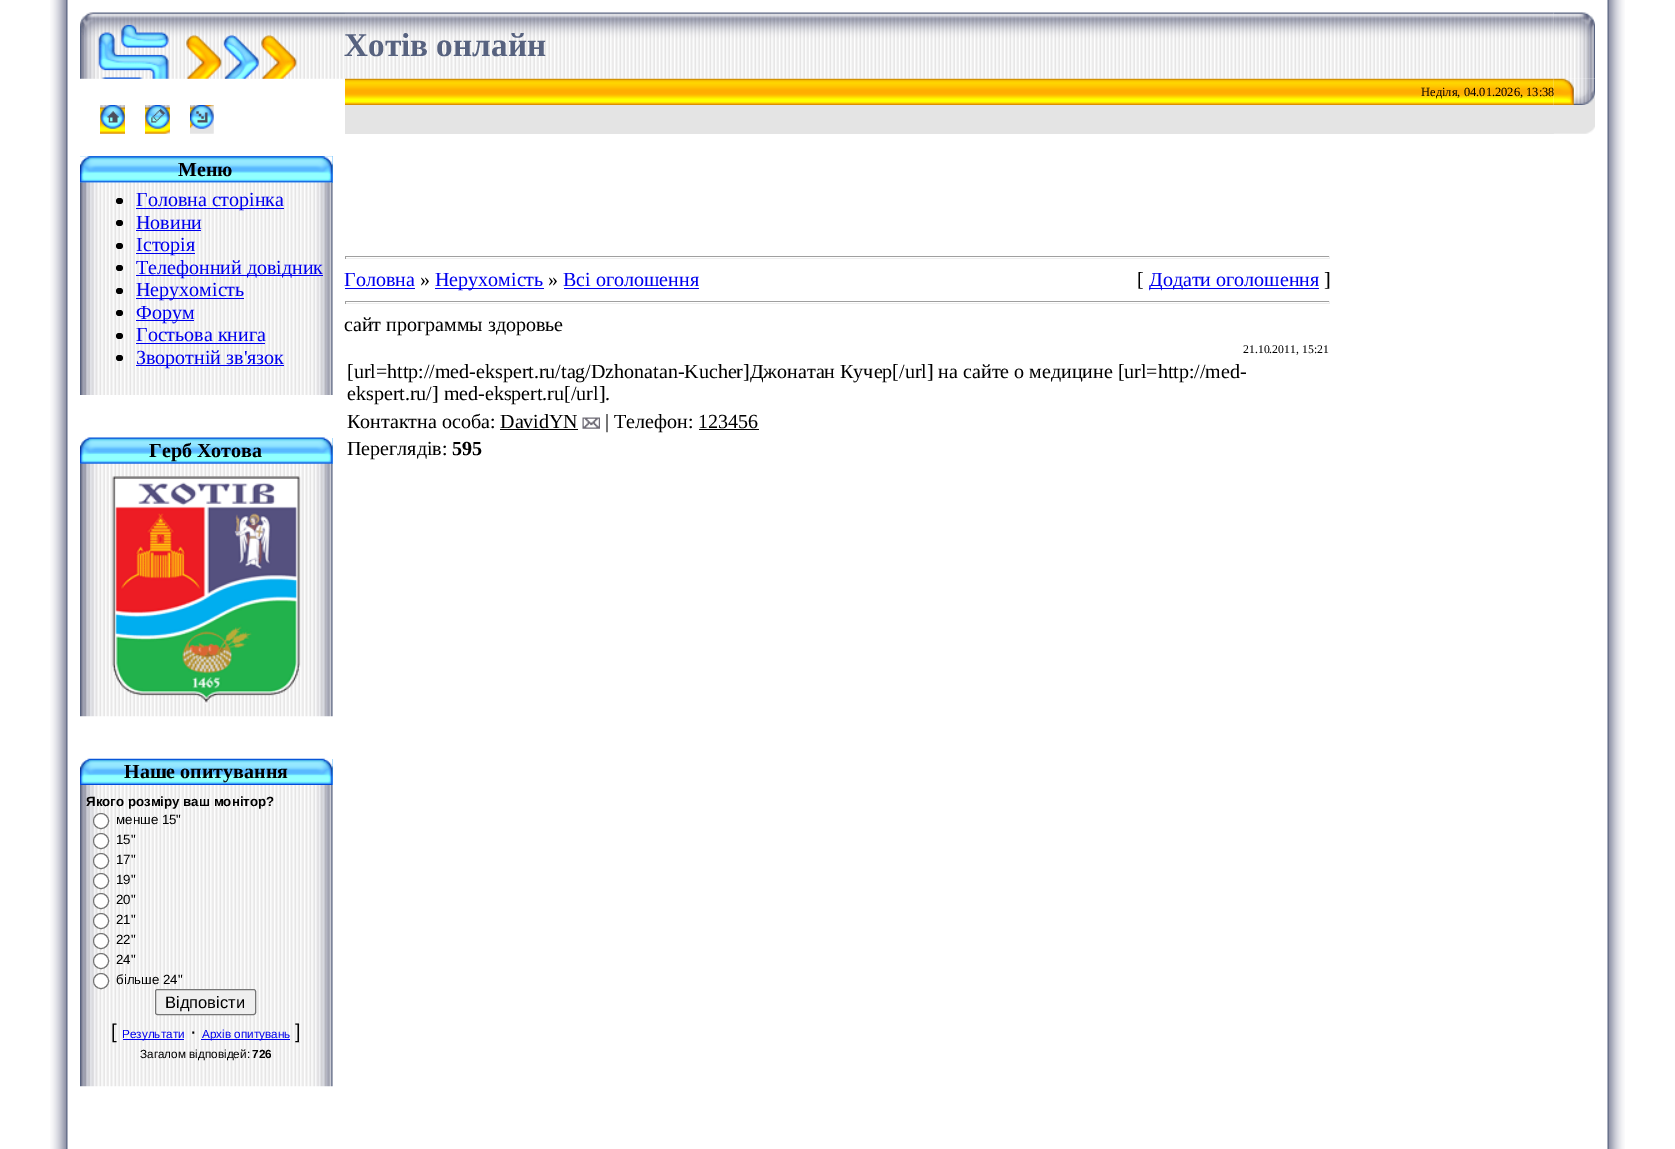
%!PS
<< /PageSize [1675 1149] >> setpagedevice
/rgb { dup -16 bitshift 255 div exch dup -8 bitshift 255 and 255 div exch 255 and 255 div setrgbcolor } def
/font { [ exch dup neg 0 0 3 -1 roll 0 0 ] selectfont } def
/text { moveto show } def
/circle { newpath 0 360 arc closepath } def
/roundrect { 5 dict begin { /r /h /w /y /x } { exch def } forall
  x r add y moveto x w add y 2 copy h add r arct x w add y h add x 1 index r arct
  x y h add x y r arct x y 2 copy exch w add exch r arct closepath end } def
/picture { 5 dict begin { /h /w /y /x /name } { exch def } forall
  gsave x y translate w h scale
  w h 8 [w 0 0 h 0 0] name (r) file false 3 colorimage grestore end } def
0 1149 translate 1 -1 scale
4 setmiterlimit
/s1 { /LiberationSerif-Bold 33.25 font 16#57627F rgb } def
/s2 { /LiberationSerif-Regular 12.5 font 16#000000 rgb } def
/s3 { /LiberationSerif-Bold 20 font 16#000000 rgb } def
/s4 { /LiberationSerif-Regular 20 font 16#0000EE rgb } def
/s5 { /LiberationSans-Bold 13.3 font 16#000000 rgb } def
/s6 { /LiberationSans-Regular 13.3 font 16#000000 rgb } def
/s7 { /LiberationSans-Regular 16.5 font 16#000000 rgb } def
/s8 { /LiberationSans-Regular 20 font 16#000000 rgb } def
/s9 { /LiberationSans-Regular 11.75 font 16#0000EE rgb } def
/s10 { /LiberationSans-Regular 11.75 font 16#000000 rgb } def
/s11 { /LiberationSans-Bold 11.75 font 16#000000 rgb } def
/s12 { /LiberationSerif-Regular 20 font 16#000000 rgb } def
/s13 { /LiberationSerif-Regular 11.75 font 16#000000 rgb } def
16#FFFFFF rgb
0 0 1675 1149 rectfill
(pic1.raw) 50 0 18 1149 picture
(pic2.raw) 80 12 265 67 picture
(pic3.raw) 345 12 1209 67 picture
s1
(Хотів онлайн) 344 56 text
(pic5.raw) 345 78 1209 27 picture
(pic4.raw) 1553 12 42 67 picture
s2
(Неділя, 04.01.2026, 13:38) 1421 96 text
(pic6.raw) 1553 78 42 27 picture
(pic7.raw) 100 105 25 29 picture
(pic8.raw) 145 105 25 29 picture
(pic9.raw) 190 105 24 29 picture
16#E4E4E4 rgb
345 105 1209 29 rectfill
(pic10.raw) 1554 105 41 29 picture
16#59B9FF rgb
80 156 253 27 rectfill
(pic11.raw) 80 156 253 27 picture
s3
(Меню) 178 176 text
16#F1F1F1 rgb
332 183 1 212 rectfill
(pic12.raw) 80 182 253 213 picture
16#000000 rgb
116 198 7 6 3 roundrect fill
16#0000EE rgb
136 208 148 1 rectfill
s4
(Головна сторінка) 136 206 text
16#000000 rgb
116 220 7 6 3 roundrect fill
s4
(Новини) 136 229 text
136 230 65 1 rectfill
16#000000 rgb
116 243 7 6 3 roundrect fill
16#0000EE rgb
136 253 59 1 rectfill
(Історія) 136 251 text
16#000000 rgb
116 265 7 6 3 roundrect fill
16#0000EE rgb
136 275 187 1 rectfill
(Телефонний довідник) 136 274 text
16#000000 rgb
116 288 7 6 3 roundrect fill
16#0000EE rgb
136 298 108 1 rectfill
(Нерухомість) 136 296 text
16#000000 rgb
116 310 7 6 3 roundrect fill
16#0000EE rgb
136 320 58 1 rectfill
(Форум) 136 319 text
16#000000 rgb
116 333 7 6 3 roundrect fill
s4
(Гостьова книга) 136 341 text
136 343 129 1 rectfill
16#000000 rgb
116 355 7 6 3 roundrect fill
16#0000EE rgb
136 365 148 1 rectfill
(Зворотній зв'язок) 136 364 text
16#59B9FF rgb
80 438 253 26 rectfill
(pic13.raw) 80 437 253 27 picture
s3
(Герб Хотова) 149 457 text
16#F1F1F1 rgb
332 464 1 252 rectfill
(pic14.raw) 80 463 253 254 picture
(pic15.raw) 112 476 189 228 picture
16#59B9FF rgb
332 759 1 26 rectfill
(pic16.raw) 80 758 253 27 picture
s3
(Наше опитування) 124 778 text
16#F1F1F1 rgb
332 785 1 301 rectfill
(pic17.raw) 80 785 253 302 picture
s5
(Якого розміру ваш монітор?) 86 806 text
16#FFFFFF rgb
101 821 7.5 circle gsave fill grestore
16#767676 rgb
stroke
s6
(менше 15") 116 824 text
16#FFFFFF rgb
101 841 7.5 circle gsave fill grestore
16#767676 rgb
stroke
s6
(15") 116 844 text
16#FFFFFF rgb
101 861 7.5 circle gsave fill grestore
16#767676 rgb
stroke
s6
(17") 116 864 text
16#FFFFFF rgb
101 881 7.5 circle gsave fill grestore
16#767676 rgb
stroke
s6
(19") 116 884 text
16#FFFFFF rgb
101 901 7.5 circle gsave fill grestore
16#767676 rgb
stroke
s6
(20") 116 904 text
16#FFFFFF rgb
101 921 7.5 circle gsave fill grestore
16#767676 rgb
stroke
s6
(21") 116 924 text
16#FFFFFF rgb
101 941 7.5 circle gsave fill grestore
16#767676 rgb
stroke
s6
(22") 116 944 text
16#FFFFFF rgb
101 961 7.5 circle gsave fill grestore
16#767676 rgb
stroke
s6
(24") 116 964 text
16#FFFFFF rgb
101 981 7.5 circle gsave fill grestore
16#767676 rgb
stroke
s6
(більше 24") 116 984 text
16#EFEFEF rgb
155.5 989.5 100 25 2 roundrect gsave fill grestore
16#767676 rgb
stroke
s7
(Відповісти) 165 1008 text
s8
([) 111 1038 text
16#0000EE rgb
123 1039 61 1 rectfill
s9
(Результати) 122 1038 text
s8
(·) 190 1038 text
16#0000EE rgb
201 1039 89 1 rectfill
s9
(Архів опитувань) 202 1038 text
s8
(]) 295 1038 text
s10
(Загалом відповідей:) 140 1058 text
s11
(726) 252 1058 text
16#9F9F9F rgb
345 256 985 1 rectfill
16#EEEEEE rgb
1329 256 1 3 rectfill
345 258 985 1 rectfill
16#9F9F9F rgb
345 256 1 3 rectfill
s4
(Головна) 344 286 text
345 288 70 1 rectfill
s12
(») 420 286 text
16#0000EE rgb
435 288 109 1 rectfill
(Нерухомість) 435 286 text
s12
(») 548 286 text
s4
(Всі оголошення) 563 286 text
564 288 135 1 rectfill
s12
([) 1137 286 text
16#0000EE rgb
1149 288 170 1 rectfill
(Додати оголошення) 1149 286 text
s12
(]) 1324 286 text
16#9F9F9F rgb
345 301 985 1 rectfill
16#EEEEEE rgb
1329 301 1 3 rectfill
345 303 985 1 rectfill
16#9F9F9F rgb
345 301 1 3 rectfill
s12
(сайт программы здоровье) 344 331 text
s13
(21.10.2011, 15:21) 1243 353 text
s12
([url=http://med-ekspert.ru/tag/Dzhonatan-Kucher]Джонатан Кучер[/url] на сайте о медицине [url=http://med-) 347 378 text
(ekspert.ru/] med-ekspert.ru[/url].) 347 400 text
(Контактна особа: DavidYN) 347 428 text
(pic18.raw) 582 417 18 12 picture
(| Телефон: 123456) 605 428 text
500 429 78 1 rectfill
699 429 60 1 rectfill
(Переглядів:) 347 455 text
s3
(595) 452 455 text
(pic19.raw) 1607 0 18 1149 picture
showpage
